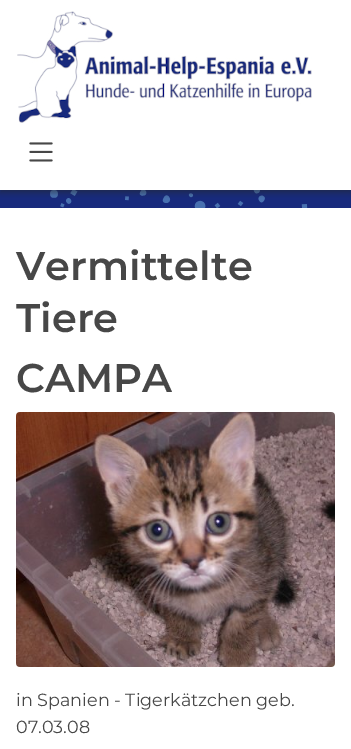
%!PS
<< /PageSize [351 749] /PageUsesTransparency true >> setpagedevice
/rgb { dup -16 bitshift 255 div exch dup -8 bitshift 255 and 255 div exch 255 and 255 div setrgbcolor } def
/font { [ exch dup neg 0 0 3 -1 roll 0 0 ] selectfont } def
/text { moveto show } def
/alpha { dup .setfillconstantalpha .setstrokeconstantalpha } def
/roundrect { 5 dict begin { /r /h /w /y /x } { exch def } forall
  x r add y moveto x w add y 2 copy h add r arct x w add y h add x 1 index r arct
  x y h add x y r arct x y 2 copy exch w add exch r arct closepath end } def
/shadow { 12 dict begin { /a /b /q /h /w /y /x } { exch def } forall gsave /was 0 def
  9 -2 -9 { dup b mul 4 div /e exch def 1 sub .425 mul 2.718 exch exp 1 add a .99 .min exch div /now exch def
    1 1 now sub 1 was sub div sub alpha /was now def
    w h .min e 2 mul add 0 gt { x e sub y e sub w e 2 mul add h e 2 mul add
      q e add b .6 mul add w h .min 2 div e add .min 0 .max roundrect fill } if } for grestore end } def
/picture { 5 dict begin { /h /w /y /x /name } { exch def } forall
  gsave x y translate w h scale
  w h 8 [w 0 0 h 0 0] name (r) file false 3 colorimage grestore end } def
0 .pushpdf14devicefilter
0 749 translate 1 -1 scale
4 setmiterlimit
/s1 { /Montserrat-Thin 40 font 16#474747 rgb } def
/s2 { /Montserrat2-Thin 17.6 font 16#474747 rgb } def
16#FFFFFF rgb
0 0 351 749 rectfill
(pic3.raw) 0 190 351 18 picture
gsave
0 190 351 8 rectclip
16#262626 rgb
0 3 351 190 0 3 0.5 shadow
grestore
(pic1.raw) 17 11 295 112 picture
(pic2.raw) 29 142 24 20 picture
s1
(Vermittelte) 16 280 text
(Tiere) 16 332 text
(CAMPA) 16 392 text
(pic4.raw) 16 412 319 255 picture
s2
(in Spanien - Tigerkätzchen geb.) 16 706 text
(07.03.08) 16 733 text
.poppdf14devicefilter showpage
